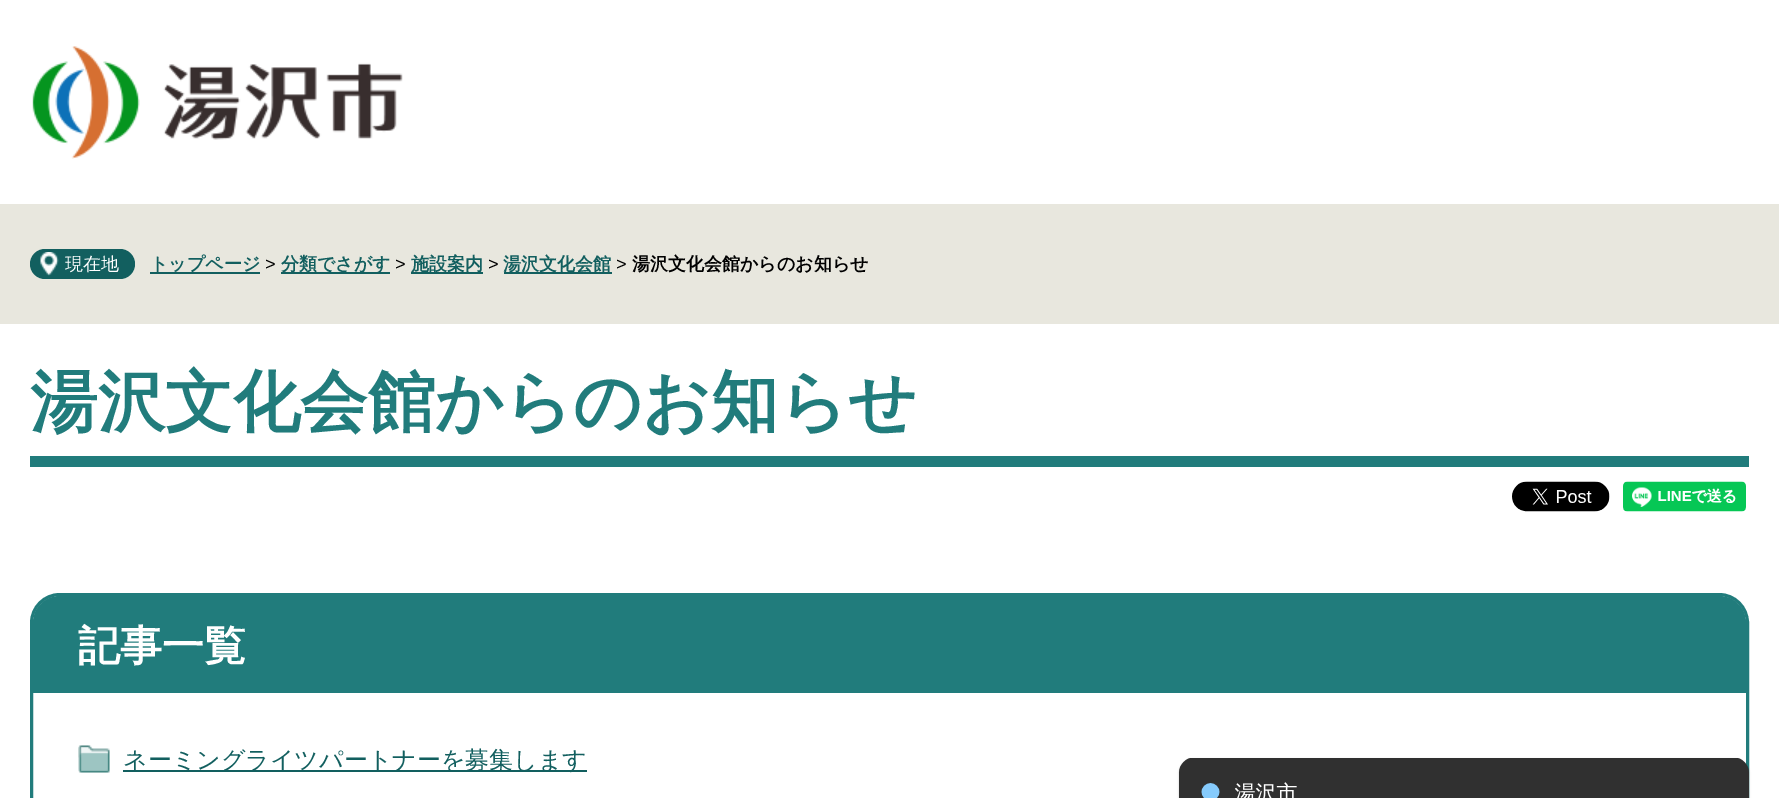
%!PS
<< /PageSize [1779 798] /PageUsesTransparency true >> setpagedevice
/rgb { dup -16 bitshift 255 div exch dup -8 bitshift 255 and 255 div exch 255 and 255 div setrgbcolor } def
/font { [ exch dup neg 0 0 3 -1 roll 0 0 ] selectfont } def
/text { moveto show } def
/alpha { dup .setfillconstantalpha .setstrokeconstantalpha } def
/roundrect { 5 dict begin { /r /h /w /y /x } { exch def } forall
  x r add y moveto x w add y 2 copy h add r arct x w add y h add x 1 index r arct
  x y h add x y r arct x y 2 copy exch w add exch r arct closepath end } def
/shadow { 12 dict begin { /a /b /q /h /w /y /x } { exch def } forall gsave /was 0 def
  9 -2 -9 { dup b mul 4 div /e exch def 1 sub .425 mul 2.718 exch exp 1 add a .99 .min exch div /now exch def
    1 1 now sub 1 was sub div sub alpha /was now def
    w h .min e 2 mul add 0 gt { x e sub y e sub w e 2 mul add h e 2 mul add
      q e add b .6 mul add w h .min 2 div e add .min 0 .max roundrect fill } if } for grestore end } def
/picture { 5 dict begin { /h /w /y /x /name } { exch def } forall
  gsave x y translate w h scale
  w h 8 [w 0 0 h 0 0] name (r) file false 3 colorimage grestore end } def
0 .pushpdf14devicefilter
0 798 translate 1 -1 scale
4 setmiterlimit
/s1 { /WenQuanYiZenHei-Medium 18 font 16#FFFFFF rgb } def
/s2 { /WenQuanYiZenHei-Bold 18 font 16#125F5F rgb } def
/s3 { /LiberationSans-Regular 18 font 16#000000 rgb } def
/s4 { /WenQuanYiZenHei-Bold 18 font 16#000000 rgb } def
/s5 { /WenQuanYiZenHei-Bold 67.5 font 16#217C7C rgb } def
/s6 { /WenQuanYiZenHei-Bold 42 font 16#FFFFFF rgb } def
/s7 { /WenQuanYiZenHei-Medium 24 font 16#125F5F rgb } def
16#FFFFFF rgb
0 0 1779 798 rectfill
(pic1.raw) 32 46 371 113 picture
16#E8E7DE rgb
0 204 1779 120 rectfill
16#125F5F rgb
30 249 105 30 15 roundrect fill
(pic2.raw) 40 252 19 24 picture
s1
(現在地) 65 270 text
16#125F5F rgb
150 272 110 2 rectfill
s2
(トップページ) 150 270 text
s3
(>) 265 270 text
16#125F5F rgb
281 272 109 2 rectfill
s2
(分類でさがす) 281 270 text
s3
(>) 395 270 text
16#125F5F rgb
411 272 72 2 rectfill
s2
(施設案内) 411 270 text
s3
(>) 488 270 text
16#125F5F rgb
504 272 108 2 rectfill
s2
(湯沢文化会館) 503 270 text
s3
(>) 616 270 text
s4
(湯沢文化会館からのお知らせ) 632 270 text
16#217C7C rgb
30 456 1719 11 rectfill
s5
(湯沢文化会館からのお知らせ) 30 425 text
(pic3.raw) 1512 481 98 31 picture
(pic4.raw) 1623 481 123 31 picture
3 setlinewidth
31.5 594.5 1716 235 28.5 roundrect stroke
60 596 moveto 1719 596 lineto 1734 596 1746 608 1746 623 curveto 1746 693 lineto 33 693 lineto 33 623 lineto 33 608 45 596 60 596 curveto closepath fill
s6
(記事一覧) 78 660 text
(pic5.raw) 78 745 32 28 picture
16#125F5F rgb
123 770 464 2 rectfill
s7
(ネーミングライツパートナーを募集します) 123 768 text
16#000000 rgb
1179 759 570 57 15 1 0.2 shadow
(pic6.raw) 1179 758 570 40 picture
.poppdf14devicefilter showpage
